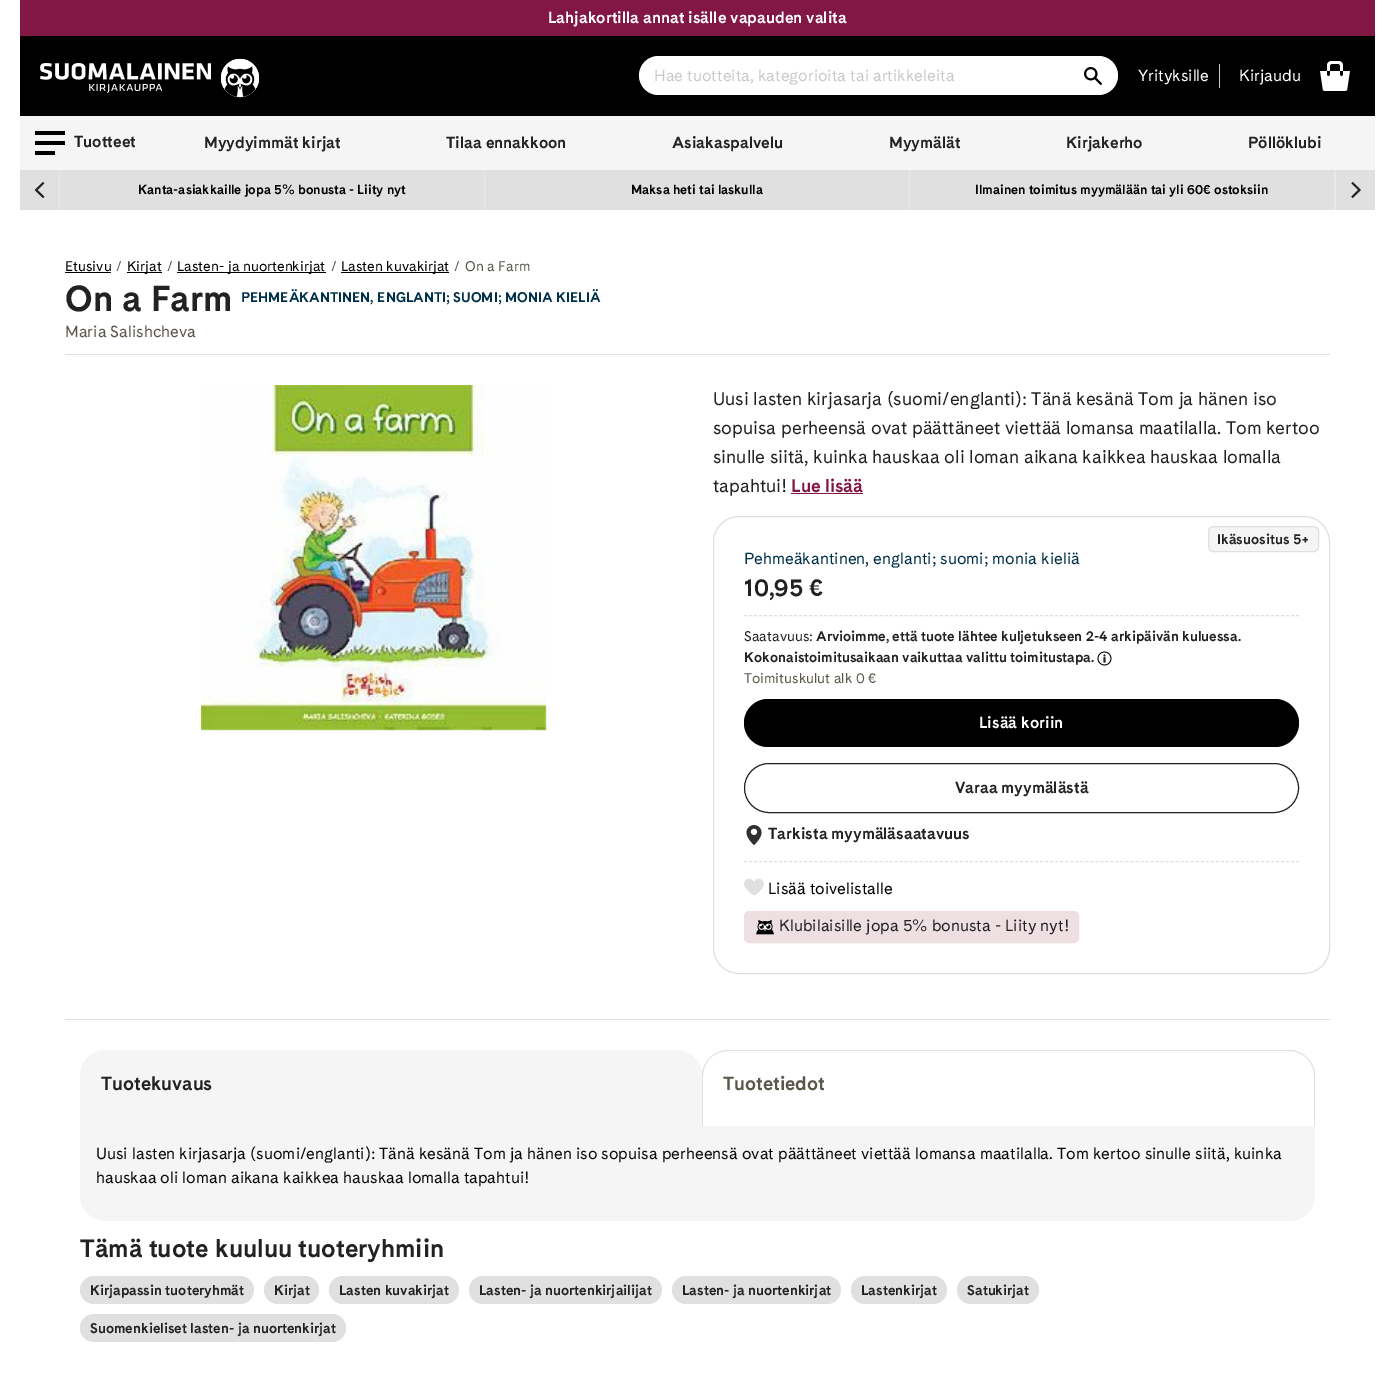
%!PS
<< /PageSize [1395 1378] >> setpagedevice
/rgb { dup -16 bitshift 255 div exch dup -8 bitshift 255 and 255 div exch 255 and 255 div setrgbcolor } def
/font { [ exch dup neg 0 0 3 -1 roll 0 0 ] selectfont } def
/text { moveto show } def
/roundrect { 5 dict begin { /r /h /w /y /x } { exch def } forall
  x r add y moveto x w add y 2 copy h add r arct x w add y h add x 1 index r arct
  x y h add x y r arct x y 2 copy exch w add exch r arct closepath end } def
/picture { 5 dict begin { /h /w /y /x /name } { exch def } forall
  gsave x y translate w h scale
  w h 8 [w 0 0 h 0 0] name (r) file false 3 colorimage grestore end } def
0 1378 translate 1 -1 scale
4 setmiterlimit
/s1 { /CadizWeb-Bold 16 font 16#FFFFFF rgb } def
/s2 { /CadizWeb-Regular 16 font 16#CACACA rgb } def
/s3 { /CadizWeb-Regular 16 font 16#FFFFFF rgb } def
/s4 { /CadizWeb-Bold 16 font 16#222222 rgb } def
/s5 { /CadizWeb-Bold 13 font 16#000000 rgb } def
/s6 { /CadizWeb-Regular 14 font 16#000000 rgb } def
/s7 { /CadizWeb-Regular 14 font 16#5A574A rgb } def
/s8 { /CadizWeb-Bold 36 font 16#222222 rgb } def
/s9 { /CadizWeb-Bold 14 font 16#003049 rgb } def
/s10 { /CadizWeb-Regular 16 font 16#5A574A rgb } def
/s11 { /CadizWeb-Regular 18 font 16#222222 rgb } def
/s12 { /CadizWeb-Bold 18 font 16#821746 rgb } def
/s13 { /CadizWeb-Bold 14 font 16#222222 rgb } def
/s14 { /CadizWeb-Regular 16 font 16#003049 rgb } def
/s15 { /CadizWeb-Bold 24 font 16#222222 rgb } def
/s16 { /CadizWeb-Regular 14 font 16#222222 rgb } def
/s17 { /CadizWeb-Regular 16 font 16#000000 rgb } def
/s18 { /CadizWeb-Regular 16 font 16#222222 rgb } def
/s19 { /CadizWeb-Bold 19 font 16#222222 rgb } def
/s20 { /CadizWeb-Bold 19 font 16#5A574A rgb } def
/s21 { /CadizWeb-Regular 16 font 16#0A0A0A rgb } def
/s22 { /CadizWeb-Bold 25 font 16#222222 rgb } def
16#FFFFFF rgb
0 0 1395 1378 rectfill
16#821746 rgb
20 0 1355 36 rectfill
s1
(Lahjakortilla annat isälle vapauden valita) 548 23 text
16#000000 rgb
20 36 1355 80 rectfill
(pic1.raw) 40 63 171 30 picture
(pic2.raw) 220 58 40 40 picture
16#FFFFFF rgb
639 56 479 39 19.5 roundrect fill
s2
(Hae tuotteita, kategorioita tai artikkeleita) 654 81 text
(pic3.raw) 1084 67 18 18 picture
16#CCCCCC rgb
1219 64 1 24 rectfill
s3
(Yrityksille) 1138 81 text
(Kirjaudu) 1239 81 text
(pic4.raw) 1320 61 30 30 picture
16#F5F5F5 rgb
20 116 1355 54 rectfill
16#000000 rgb
35 131 30 4 rectfill
35 141 30 4 rectfill
35 151 20 4 rectfill
s4
(Tuotteet) 74 147 text
(Myydyimmät kirjat) 204 148 text
(Tilaa ennakkoon) 446 148 text
(Asiakaspalvelu) 672 148 text
(Myymälät) 889 148 text
(Kirjakerho) 1066 148 text
(Pöllöklubi) 1248 148 text
16#E0E0E0 rgb
20 170 1355 40 rectfill
16#E8E8E8 rgb
59 170 1 40 rectfill
(pic5.raw) 34 182 11 16 picture
484 170 1 40 rectfill
s5
(Kanta-asiakkaille jopa 5% bonusta - Liity nyt) 138 194 text
16#E8E8E8 rgb
909 170 1 40 rectfill
s5
(Maksa heti tai laskulla) 631 194 text
16#E8E8E8 rgb
1334 170 2 40 rectfill
s5
(Ilmainen toimitus myymälään tai yli 60€ ostoksiin) 975 194 text
(pic6.raw) 1351 182 10 16 picture
s6
(Etusivu) 65 271 text
65 272 46 1 rectfill
s7
(/) 116 271 text
16#000000 rgb
127 272 35 1 rectfill
(Kirjat) 127 271 text
s7
(/) 167 271 text
16#000000 rgb
177 272 149 1 rectfill
(Lasten- ja nuortenkirjat) 177 271 text
s7
(/) 331 271 text
16#000000 rgb
341 272 108 1 rectfill
(Lasten kuvakirjat) 341 271 text
s7
(/) 454 271 text
(On a Farm) 465 271 text
s8
(On a Farm) 65 311 text
s9
(PEHMEÄKANTINEN, ENGLANTI; SUOMI; MONIA KIELIÄ) 241 302 text
s10
(Maria Salishcheva) 65 337 text
16#E0E0E0 rgb
65 354 1265 1 rectfill
(pic7.raw) 201 385 346 346 picture
s11
(Uusi lasten kirjasarja \(suomi/englanti\): Tänä kesänä Tom ja hänen iso) 713 405 text
(sopuisa perheensä ovat päättäneet viettää lomansa maatilalla. Tom kertoo) 713 434 text
(sinulle siitä, kuinka hauskaa oli loman aikana kaikkea hauskaa lomalla) 713 463 text
(tapahtui!) 713 492 text
s12
(Lue lisää) 791 492 text
791 493 72 1 rectfill
16#E0E0E0 rgb
713.5 516.5 616 457 25.5 roundrect stroke
16#F5F5F5 rgb
1208.5 526.5 110 25 4.5 roundrect gsave fill grestore
16#E0E0E0 rgb
stroke
s13
(Ikäsuositus 5+) 1217 544 text
s14
(Pehmeäkantinen, englanti; suomi; monia kieliä) 744 564 text
s15
(10,95 €) 744 596 text
16#E0E0E0 rgb
[3 2.02] 0 setdash
744 615.5 moveto 1299 615.5 lineto stroke
s16
(Saatavuus:) 744 641 text
s13
(Arvioimme, että tuote lähtee kuljetukseen 2-4 arkipäivän kuluessa.) 816 641 text
(Kokonaistoimitusaikaan vaikuttaa valittu toimitustapa.) 744 662 text
(pic8.raw) 1097 651 15 15 picture
s7
(Toimituskulut alk 0 €) 744 683 text
16#000000 rgb
744 699 555 48 24 roundrect fill
s1
(Lisää koriin) 979 728 text
16#222222 rgb
[] 0 setdash
744.5 763.5 554 49 24.5 roundrect stroke
(Varaa myymälästä) 955 793 text
(pic9.raw) 746 825 16 20 picture
(Tarkista myymäläsaatavuus) 768 839 text
16#E0E0E0 rgb
[3 2.02] 0 setdash
744 861.5 moveto 1299 861.5 lineto stroke
(pic10.raw) 744 878 20 18 picture
s17
(Lisää toivelistalle) 768 894 text
16#EEDFE3 rgb
744.5 911.5 334 31 4.5 roundrect gsave fill grestore
[] 0 setdash
stroke
(pic11.raw) 756 919 18 16 picture
s18
(Klubilaisille jopa 5% bonusta - Liity nyt!) 779 931 text
16#E0E0E0 rgb
65 1019 1265 1 rectfill
16#F5F5F5 rgb
106 1050 moveto 676 1050 lineto 690.5 1050 702 1061.5 702 1076 curveto 702 1126 lineto 80 1126 lineto 80 1076 lineto 80 1061.5 91.5 1050 106 1050 curveto closepath fill
s19
(Tuotekuvaus) 101 1090 text
16#E0E0E0 rgb
728 1050 moveto 1289 1050 lineto 1303 1050 1315 1062 1315 1076 curveto 1315 1126 lineto 702 1126 lineto 702 1076 lineto 702 1062 714 1050 728 1050 curveto closepath 728 1051 moveto 1289 1051 lineto 1303 1051 1314 1062 1314 1076 curveto 1314 1126 lineto 703 1126 lineto 703 1076 lineto 703 1062 714 1051 728 1051 curveto closepath eofill
s20
(Tuotetiedot) 723 1090 text
16#F5F5F5 rgb
80 1126 moveto 1315 1126 lineto 1315 1195 lineto 1315 1209.5 1303.5 1221 1289 1221 curveto 106 1221 lineto 91.5 1221 80 1209.5 80 1195 curveto closepath fill
s21
(Uusi lasten kirjasarja \(suomi/englanti\): Tänä kesänä Tom ja hänen iso sopuisa perheensä ovat päättäneet viettää lomansa maatilalla. Tom kertoo sinulle siitä, kuinka) 96 1159 text
(hauskaa oli loman aikana kaikkea hauskaa lomalla tapahtui!) 96 1183 text
s22
(Tämä tuote kuuluu tuoteryhmiin) 80 1257 text
16#E0E0E0 rgb
80 1276 174 28 14 roundrect fill
s13
(Kirjapassin tuoteryhmät) 90 1295 text
16#E0E0E0 rgb
264 1276 55 28 14 roundrect fill
s13
(Kirjat) 274 1295 text
16#E0E0E0 rgb
329 1276 130 28 14 roundrect fill
s13
(Lasten kuvakirjat) 339 1295 text
16#E0E0E0 rgb
469 1276 193 28 14 roundrect fill
s13
(Lasten- ja nuortenkirjailijat) 479 1295 text
16#E0E0E0 rgb
672 1276 169 28 14 roundrect fill
s13
(Lasten- ja nuortenkirjat) 682 1295 text
16#E0E0E0 rgb
851 1276 96 28 14 roundrect fill
s13
(Lastenkirjat) 861 1295 text
16#E0E0E0 rgb
957 1276 82 28 14 roundrect fill
s13
(Satukirjat) 967 1295 text
16#E0E0E0 rgb
80 1314 266 28 14 roundrect fill
s13
(Suomenkieliset lasten- ja nuortenkirjat) 90 1333 text
showpage
